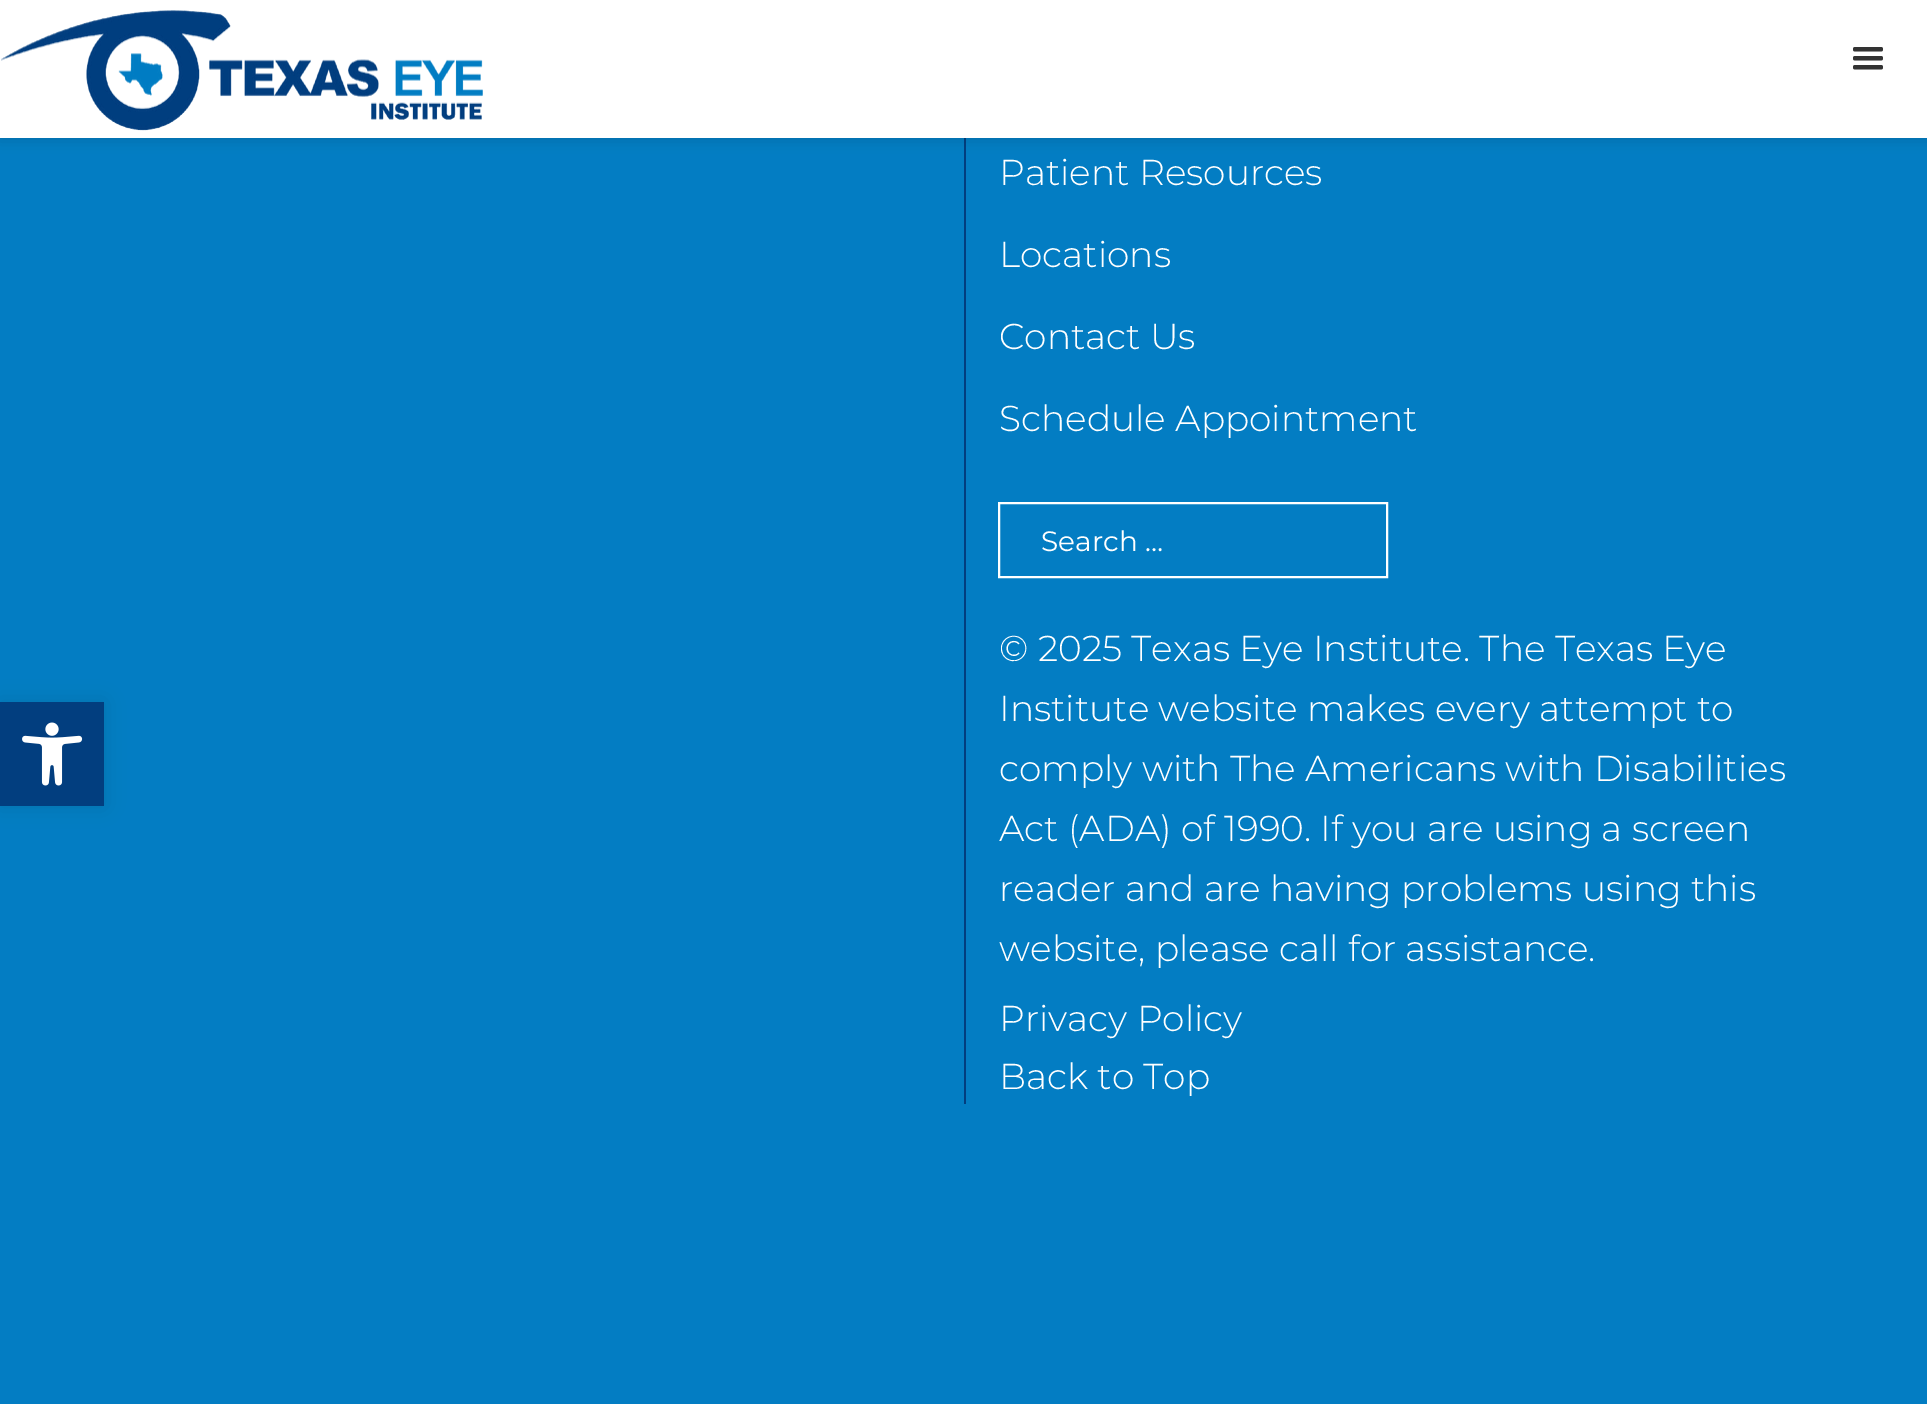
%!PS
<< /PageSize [1927 1404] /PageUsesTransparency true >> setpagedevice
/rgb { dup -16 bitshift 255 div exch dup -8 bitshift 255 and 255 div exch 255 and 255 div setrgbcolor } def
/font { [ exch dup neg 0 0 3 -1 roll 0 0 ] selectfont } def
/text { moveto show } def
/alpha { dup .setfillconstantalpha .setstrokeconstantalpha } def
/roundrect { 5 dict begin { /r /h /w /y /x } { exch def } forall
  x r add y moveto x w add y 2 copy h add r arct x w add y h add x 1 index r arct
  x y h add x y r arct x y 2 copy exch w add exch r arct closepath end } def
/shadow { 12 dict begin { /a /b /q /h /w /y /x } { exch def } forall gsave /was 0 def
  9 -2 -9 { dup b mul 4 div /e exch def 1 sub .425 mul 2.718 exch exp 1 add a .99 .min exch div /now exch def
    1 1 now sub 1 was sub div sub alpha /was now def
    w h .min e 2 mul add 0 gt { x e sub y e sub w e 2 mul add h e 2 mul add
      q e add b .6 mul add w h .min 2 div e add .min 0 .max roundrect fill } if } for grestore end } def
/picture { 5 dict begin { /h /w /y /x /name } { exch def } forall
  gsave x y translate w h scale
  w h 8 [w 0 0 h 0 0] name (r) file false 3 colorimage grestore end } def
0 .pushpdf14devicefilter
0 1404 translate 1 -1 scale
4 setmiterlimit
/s1 { /Montserrat-Light 36 font 16#FFFFFF rgb } def
/s2 { /Montserrat-Regular 28 font 16#FFFFFF rgb } def
16#037DC3 rgb
0 0 1927 1404 rectfill
16#023E7F rgb
964 138 2 966 rectfill
16#000000 rgb
0 0 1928 138 0 7 0.17 shadow
16#FFFFFF rgb
0 0 1927 138 rectfill
(pic1.raw) 1 10 482 121 picture
(pic2.raw) 1853 47 30 23 picture
16#000000 rgb
0 702 104 104 0 10 0.1 shadow
16#023E7F rgb
0 702 104 104 rectfill
(pic3.raw) 22 722 61 64 picture
s1
(Patient Resources) 999 185 text
(Locations) 999 267 text
(Contact Us) 999 349 text
(Schedule Appointment) 999 431 text
2 setlinewidth
999 503 388 74 rectstroke
s2
(Search …) 1041 551 text
s1
(© 2025 Texas Eye Institute. The Texas Eye) 999 661 text
(Institute website makes every attempt to) 999 721 text
(comply with The Americans with Disabilities) 999 781 text
(Act \(ADA\) of 1990. If you are using a screen) 999 841 text
(reader and are having problems using this) 999 901 text
(website, please call for assistance.) 999 961 text
(Privacy Policy) 999 1031 text
(Back to Top) 999 1089 text
.poppdf14devicefilter showpage
